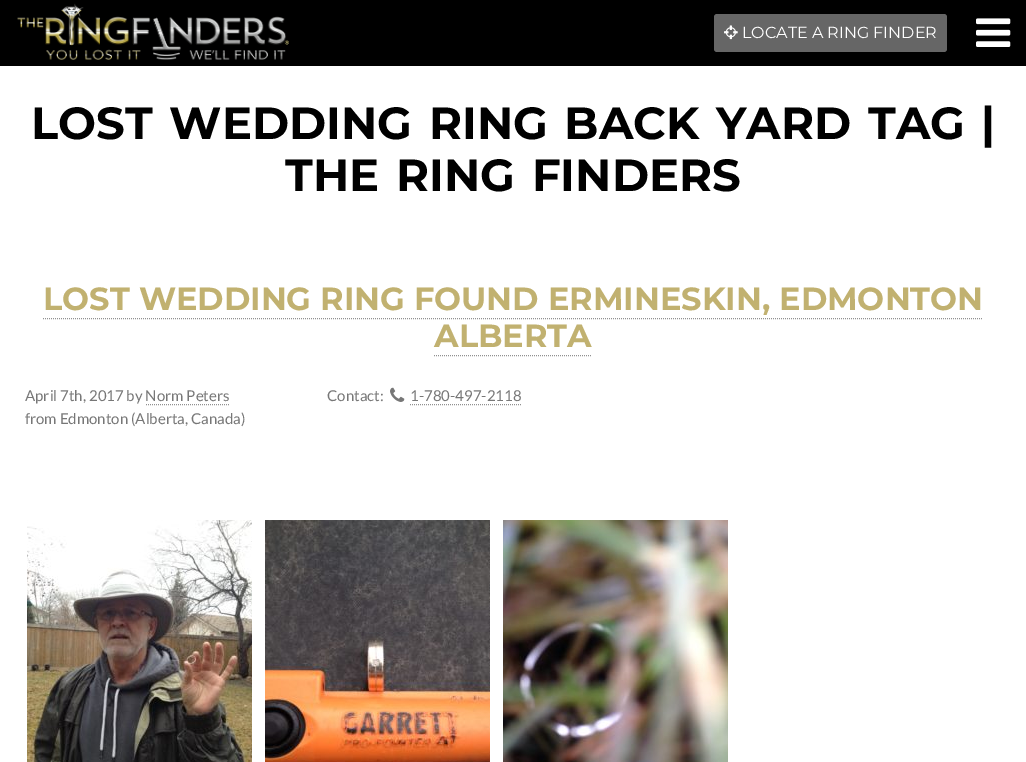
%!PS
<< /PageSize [1026 762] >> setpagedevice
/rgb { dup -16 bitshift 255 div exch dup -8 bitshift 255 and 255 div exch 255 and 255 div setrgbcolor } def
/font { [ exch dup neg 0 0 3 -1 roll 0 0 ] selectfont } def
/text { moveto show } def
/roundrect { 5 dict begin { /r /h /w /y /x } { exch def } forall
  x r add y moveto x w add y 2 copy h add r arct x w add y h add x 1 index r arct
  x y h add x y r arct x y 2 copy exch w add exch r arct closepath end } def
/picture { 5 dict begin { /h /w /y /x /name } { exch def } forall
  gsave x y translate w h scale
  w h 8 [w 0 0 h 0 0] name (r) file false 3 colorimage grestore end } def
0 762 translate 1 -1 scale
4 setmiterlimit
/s1 { /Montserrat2-Thin 16 font 16#FFFFFF rgb } def
/s2 { /Montserrat-Thin 32 font 16#C1B170 rgb } def
/s3 { /Lato-Regular 15 font 16#777777 rgb } def
16#FFFFFF rgb
0 0 1026 762 rectfill
16#000000 rgb
0 0 1026 66 rectfill
(pic1.raw) 17 3 272 57 picture
16#666666 rgb
714 14 233 38 3 roundrect fill
(pic2.raw) 724 25 14 15 picture
s1
(LOCATE A RING FINDER) 742 38 text
(pic3.raw) 976 18 35 29 picture
/Montserrat-Thin 45 font
16#000000 rgb
31 139 moveto 4 0 32 (LOST WEDDING RING BACK YARD TAG |) widthshow
285 191 moveto 4 0 32 (THE RING FINDERS) widthshow
s2
(LOST WEDDING RING FOUND ERMINESKIN, EDMONTON) 43 310 text
(ALBERTA) 434 347 text
16#919191 rgb
[1 1] 0 setdash
43 318.5 moveto 983 318.5 lineto stroke
434 355.5 moveto 592 355.5 lineto stroke
s3
(April 7th, 2017 by Norm Peters) 25 401 text
16#919191 rgb
146 404.5 moveto 230 404.5 lineto stroke
s3
(from Edmonton \(Alberta, Canada\)) 25 424 text
(Contact:) 327 401 text
(pic4.raw) 390 387 15 15 picture
16#919191 rgb
410 404.5 moveto 521 404.5 lineto stroke
s3
(1-780-497-2118) 410 401 text
(pic5.raw) 27 520 225 242 picture
(pic6.raw) 265 520 225 242 picture
(pic7.raw) 503 520 225 242 picture
showpage
